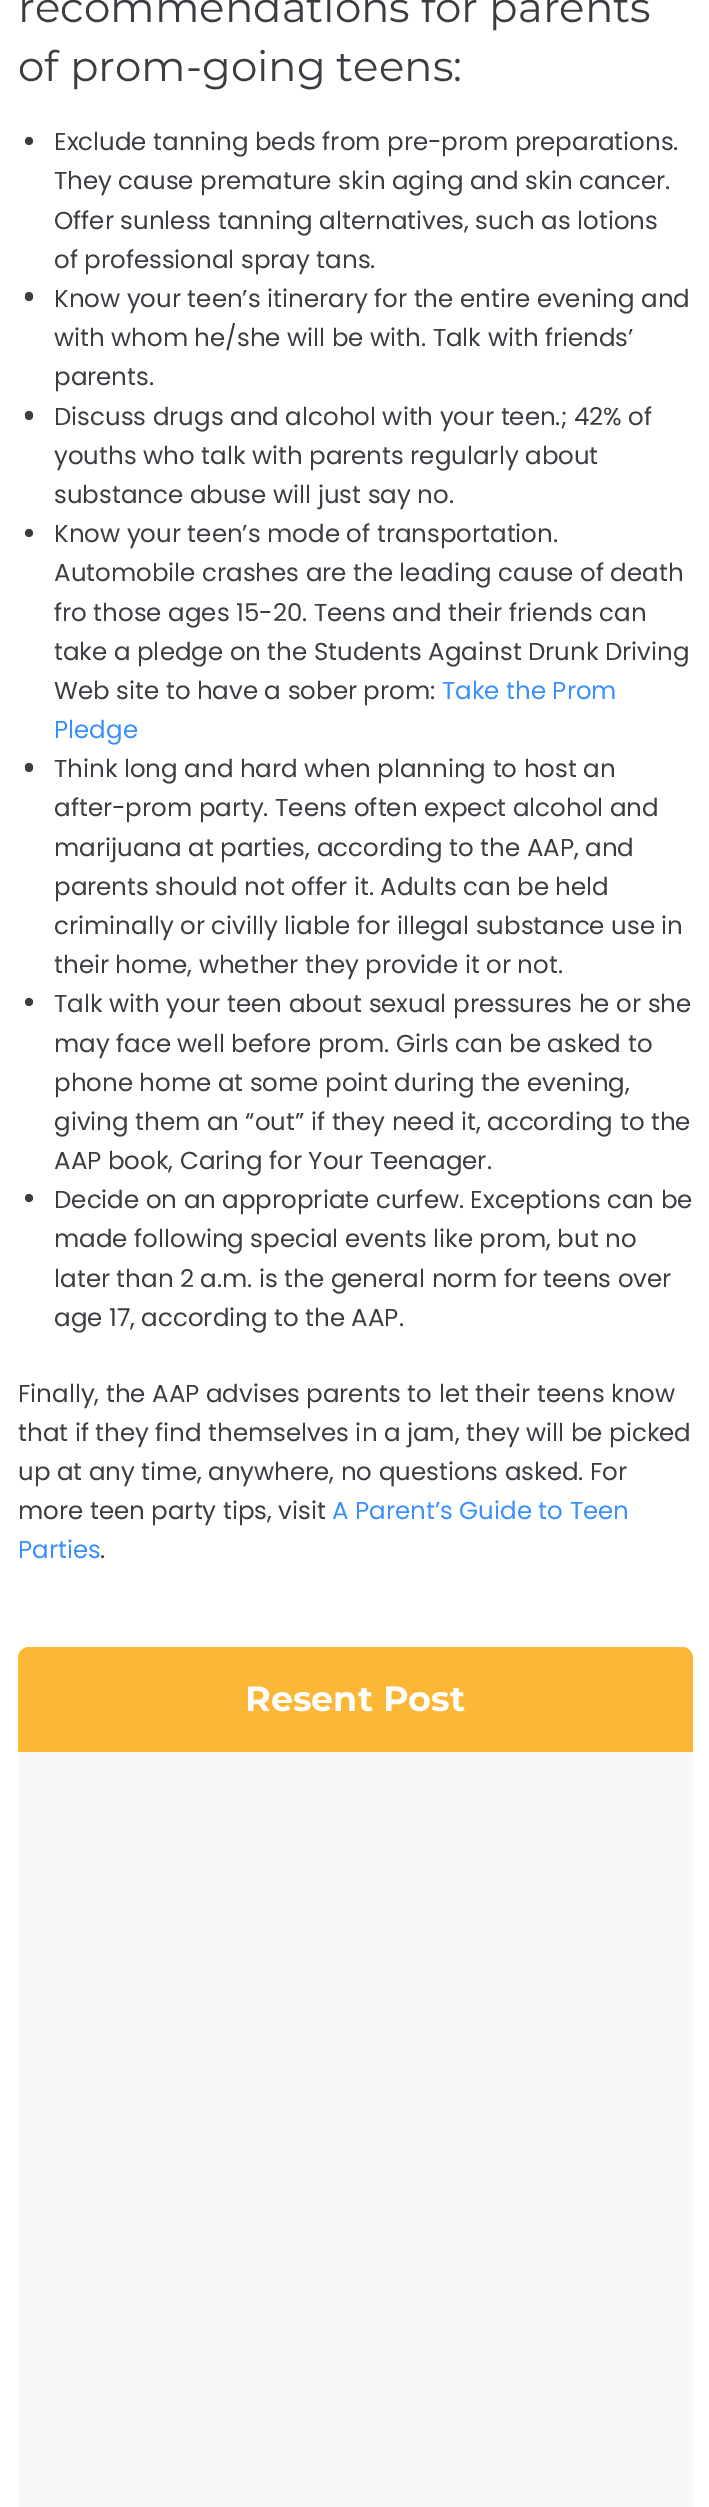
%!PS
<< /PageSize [709 2507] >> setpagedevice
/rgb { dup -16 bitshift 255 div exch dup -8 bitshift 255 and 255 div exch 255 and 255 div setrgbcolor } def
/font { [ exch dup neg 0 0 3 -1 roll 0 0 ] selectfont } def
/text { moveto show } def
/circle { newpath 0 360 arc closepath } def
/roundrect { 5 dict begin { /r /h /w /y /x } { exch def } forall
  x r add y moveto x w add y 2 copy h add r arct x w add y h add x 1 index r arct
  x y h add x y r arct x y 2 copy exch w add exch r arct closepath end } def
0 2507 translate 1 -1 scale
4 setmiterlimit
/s1 { /Montserrat-Regular 42 font 16#3B3D42 rgb } def
/s2 { /Poppins-Regular 24.5 font 16#3B3D42 rgb } def
/s3 { /Poppins-Regular 24.5 font 16#398FFC rgb } def
/s4 { /Montserrat-Bold 35 font 16#FFFFFF rgb } def
16#FFFFFF rgb
0 0 709 2507 rectfill
s1
(recommendations for parents) 18 22 text
(of prom-going teens:) 18 81 text
29 141 4 circle fill
s2
(Exclude tanning beds from pre-prom preparations.) 54 150 text
(They cause premature skin aging and skin cancer.) 54 189 text
(Offer sunless tanning alternatives, such as lotions) 54 229 text
(of professional spray tans.) 54 268 text
25 292 8 9 4 roundrect fill
(Know your teen’s itinerary for the entire evening and) 54 307 text
(with whom he/she will be with. Talk with friends’) 54 346 text
(parents.) 54 385 text
25 411 8 9 4 roundrect fill
(Discuss drugs and alcohol with your teen.; 42% of) 54 425 text
(youths who talk with parents regularly about) 54 464 text
(substance abuse will just say no.) 54 503 text
29 533 4 circle fill
(Know your teen’s mode of transportation.) 54 542 text
(Automobile crashes are the leading cause of death) 54 581 text
(fro those ages 15-20. Teens and their friends can) 54 621 text
(take a pledge on the Students Against Drunk Driving) 54 660 text
(Web site to have a sober prom:) 54 699 text
s3
(Take the Prom) 442 699 text
(Pledge) 54 738 text
16#3B3D42 rgb
25 763 8 9 4 roundrect fill
(Think long and hard when planning to host an) 54 777 text
(after-prom party. Teens often expect alcohol and) 54 816 text
(marijuana at parties, according to the AAP, and) 54 856 text
(parents should not offer it. Adults can be held) 54 895 text
(criminally or civilly liable for illegal substance use in) 54 934 text
(their home, whether they provide it or not.) 54 973 text
29 1002 4 circle fill
(Talk with your teen about sexual pressures he or she) 54 1012 text
(may face well before prom. Girls can be asked to) 54 1052 text
(phone home at some point during the evening,) 54 1091 text
(giving them an “out” if they need it, according to the) 54 1130 text
(AAP book, Caring for Your Teenager.) 54 1169 text
29 1198 4 circle fill
(Decide on an appropriate curfew. Exceptions can be) 54 1208 text
(made following special events like prom, but no) 54 1247 text
(later than 2 a.m. is the general norm for teens over) 54 1287 text
(age 17, according to the AAP.) 54 1326 text
(Finally, the AAP advises parents to let their teens know) 18 1402 text
(that if they find themselves in a jam, they will be picked) 18 1441 text
(up at any time, anywhere, no questions asked. For) 18 1480 text
(more teen party tips, visit) 18 1519 text
s3
(A Parent’s Guide to Teen) 332 1519 text
(Parties) 18 1558 text
s2
(.) 100 1558 text
16#FDB736 rgb
29 1647 moveto 682 1647 lineto 688 1647 693 1652 693 1658 curveto 693 1752 lineto 18 1752 lineto 18 1658 lineto 18 1652 23 1647 29 1647 curveto closepath fill
s4
(Resent Post) 245 1711 text
16#F8F8F8 rgb
18 1752 675 755 rectfill
showpage
